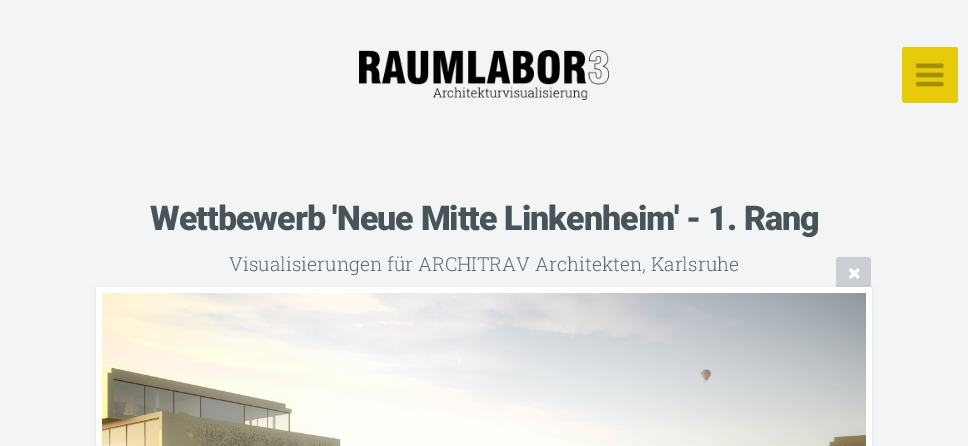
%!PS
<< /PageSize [968 446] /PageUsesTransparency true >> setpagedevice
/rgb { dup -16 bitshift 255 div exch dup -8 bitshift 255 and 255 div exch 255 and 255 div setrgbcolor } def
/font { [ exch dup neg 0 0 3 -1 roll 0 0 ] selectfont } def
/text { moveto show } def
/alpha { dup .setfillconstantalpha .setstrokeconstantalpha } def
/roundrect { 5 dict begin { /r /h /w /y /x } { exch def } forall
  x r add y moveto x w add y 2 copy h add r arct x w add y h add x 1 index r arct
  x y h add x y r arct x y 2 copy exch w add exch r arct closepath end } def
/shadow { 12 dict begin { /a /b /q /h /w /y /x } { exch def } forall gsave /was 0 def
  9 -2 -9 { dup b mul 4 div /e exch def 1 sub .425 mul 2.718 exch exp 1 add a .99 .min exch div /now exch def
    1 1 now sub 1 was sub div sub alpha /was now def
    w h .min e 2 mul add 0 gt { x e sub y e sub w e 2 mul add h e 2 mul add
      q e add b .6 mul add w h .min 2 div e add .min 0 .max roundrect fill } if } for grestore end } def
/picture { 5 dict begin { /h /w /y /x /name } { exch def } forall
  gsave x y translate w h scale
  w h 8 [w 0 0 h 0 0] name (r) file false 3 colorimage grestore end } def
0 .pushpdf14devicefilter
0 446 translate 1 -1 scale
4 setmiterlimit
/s1 { /RobotoSlab-Light 19.2 font 16#5B6971 rgb } def
16#F3F4F5 rgb
0 0 968 446 rectfill
16#E7CB0A rgb
902 47 56 56 3 roundrect fill
(pic1.raw) 916 63 28 24 picture
(pic2.raw) 359 50 250 50 picture
/Roboto-Black 34 font
16#48545A rgb
150 230 moveto -0.95 0 (Wettbewerb 'Neue Mitte Linkenheim' - 1. Rang) ashow
s1
(Visualisierungen für ARCHITRAV Architekten, Karlsruhe) 229 271 text
16#CBCFD4 rgb
839 257 moveto 868 257 lineto 869.5 257 871 258.5 871 260 curveto 871 288 lineto 836 288 lineto 836 260 lineto 836 258.5 837.5 257 839 257 curveto closepath fill
(pic3.raw) 849 268 11 11 picture
16#000000 rgb
96 288 776 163 0 1.5 0.1 shadow
16#FFFFFF rgb
96 287 776 159 rectfill
(pic4.raw) 102 293 764 153 picture
.poppdf14devicefilter showpage
